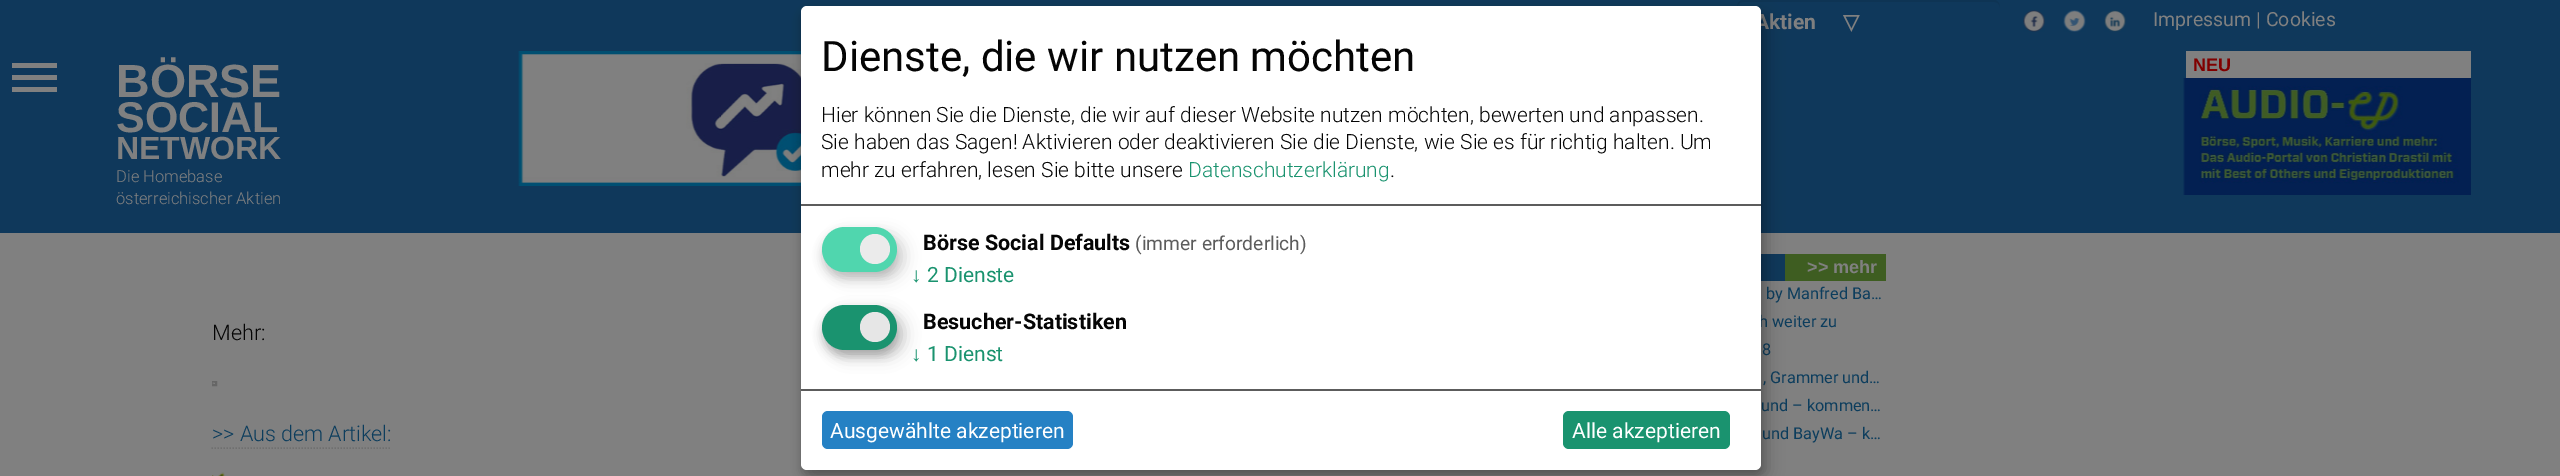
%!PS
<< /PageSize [2560 476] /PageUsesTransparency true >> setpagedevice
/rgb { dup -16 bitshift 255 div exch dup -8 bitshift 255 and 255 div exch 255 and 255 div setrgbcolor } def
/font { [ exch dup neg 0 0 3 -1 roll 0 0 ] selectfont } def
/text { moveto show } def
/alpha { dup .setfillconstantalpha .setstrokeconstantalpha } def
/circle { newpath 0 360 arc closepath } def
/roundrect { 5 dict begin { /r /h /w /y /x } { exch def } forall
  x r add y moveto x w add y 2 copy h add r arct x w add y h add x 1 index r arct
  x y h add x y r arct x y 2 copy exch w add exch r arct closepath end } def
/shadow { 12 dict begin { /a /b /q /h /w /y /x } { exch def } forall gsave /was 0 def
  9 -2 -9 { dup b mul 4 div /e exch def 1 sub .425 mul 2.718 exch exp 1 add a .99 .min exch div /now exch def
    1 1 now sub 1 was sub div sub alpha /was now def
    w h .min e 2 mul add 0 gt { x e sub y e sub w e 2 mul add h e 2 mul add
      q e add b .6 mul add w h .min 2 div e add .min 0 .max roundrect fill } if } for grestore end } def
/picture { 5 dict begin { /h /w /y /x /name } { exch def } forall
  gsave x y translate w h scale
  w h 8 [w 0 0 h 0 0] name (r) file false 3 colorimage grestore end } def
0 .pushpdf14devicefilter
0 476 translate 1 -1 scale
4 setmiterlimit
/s1 { /Roboto-Bold 21 font 16#808080 rgb } def
/s2 { /DejaVuSans-Bold 21 font 16#808080 rgb } def
/s3 { /Roboto-Regular 19.5 font 16#808080 rgb } def
/s4 { /Arimo-Bold 46.5 font 16#808080 rgb } def
/s5 { /Arimo-Bold 43 font 16#808080 rgb } def
/s6 { /Arimo-Bold 32 font 16#808080 rgb } def
/s7 { /Roboto-Light 16.5 font 16#808080 rgb } def
/s8 { /Arimo-Bold 18 font 16#800000 rgb } def
/s9 { /Roboto-Light 21.5 font 16#050505 rgb } def
/s10 { /Roboto-Light 21.5 font 16#0C3D5D rgb } def
/s11 { /Arimo-Bold 18 font 16#808080 rgb } def
/s12 { /Roboto-Regular 16.25 font 16#0C3D5D rgb } def
/s13 { /Roboto-Regular 42 font 16#050505 rgb } def
/s14 { /Roboto-Light 21 font 16#050505 rgb } def
/s15 { /Roboto-Light 21 font 16#1A936F rgb } def
/s16 { /Roboto-Bold 21.5 font 16#050505 rgb } def
/s17 { /Roboto-Regular 19.25 font 16#5C5C5C rgb } def
/s18 { /LiberationSans-Regular 21 font 16#1A936F rgb } def
/s19 { /Roboto-Regular 21 font 16#1A936F rgb } def
/s20 { /Roboto-Regular 21 font 16#FFFFFF rgb } def
16#808080 rgb
0 0 2560 476 rectfill
16#0F385B rgb
0 0 2560 233 rectfill
16#0E3454 rgb
1743 2 moveto 1994 2 lineto 1997 2 2000 4 2000 8 curveto 2000 5 1999 1 1995 0 curveto 1742 0 lineto 1738 1 1737 5 1737 8 curveto 1737 4 1740 2 1743 2 curveto closepath fill
s1
(Aktien) 1755 29 text
s2
(▽) 1843 29 text
(pic1.raw) 2023 10 22 22 picture
(pic2.raw) 2063 10 23 22 picture
(pic3.raw) 2104 10 22 22 picture
s3
(Impressum | Cookies) 2153 26 text
12 87 45 5 rectfill
12 75 45 5 rectfill
12 63 45 5 rectfill
s4
(BÖRSE) 116 97 text
s5
(SOCIAL) 116 132 text
s6
(NETWORK) 116 159 text
s7
(Die Homebase) 116 182 text
(österreichischer Aktien) 116 204 text
(pic4.raw) 518 51 283 135 picture
2186 51 285 27 rectfill
s8
(NEU) 2193 71 text
(pic5.raw) 2183 78 288 117 picture
s9
(Mehr:) 212 340 text
16#666666 rgb
2 setlinewidth
213 382 3 3 rectstroke
(pic6.raw) 212 382 3 2 picture
s10
(>> Aus dem Artikel:) 212 441 text
16#6F6F6F rgb
1.5 setlinewidth
[1.5 1.5] 0 setdash
211.5 448 moveto 391.5 448 lineto stroke
(pic7.raw) 212 472 13 4 picture
16#0F385B rgb
1761 254 24 27 rectfill
16#3E5D21 rgb
1785 254 101 27 rectfill
s11
(>> mehr) 1807 273 text
s12
(by Manfred Ba…) 1766 299 text
(h weiter zu) 1759 327 text
(8) 1762 355 text
(, Grammer und…) 1763 383 text
(und – kommen…) 1761 411 text
(und BayWa – k…) 1762 439 text
16#000000 rgb
809 14 960 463 6 7.5 0.19 shadow
801 12 960 464 6 4.5 0.2 shadow
16#FFFFFF rgb
801 6 960 464 6 roundrect fill
16#5C5C5C rgb
801 204 960 2 rectfill
s13
(Dienste, die wir nutzen möchten) 821 71 text
s14
(Hier können Sie die Dienste, die wir auf dieser Website nutzen möchten, bewerten und anpassen.) 821 122 text
(Sie haben das Sagen! Aktivieren oder deaktivieren Sie die Dienste, wie Sie es für richtig halten. Um) 821 149 text
(mehr zu erfahren, lesen Sie bitte unsere) 821 177 text
s15
(Datenschutzerklärung) 1188 177 text
s14
(.) 1390 177 text
16#000000 rgb
830 234 75 45 22.5 7.5 0.15 shadow
16#333333 rgb
822 233 75 45 22.5 4.5 0.2 shadow
16#50D6AE rgb
822 227 75 45 22.5 roundrect fill
16#EBEBEB rgb
875 249 15 circle fill
s16
(Börse Social Defaults) 923 250 text
s17
(\(immer erforderlich\)) 1135 250 text
s18
(↓) 911 282 text
s19
(2 Dienste) 927 282 text
16#000000 rgb
830 312 75 45 22.5 7.5 0.19 shadow
822 311 75 45 22.5 4.5 0.2 shadow
16#1A936F rgb
822 305 75 45 22.5 roundrect fill
16#E6E6E6 rgb
875 327 15 circle fill
s16
(Besucher-Statistiken) 923 329 text
s18
(↓) 911 361 text
s19
(1 Dienst) 927 361 text
16#5C5C5C rgb
801 389 960 2 rectfill
16#2581C4 rgb
822 411 251 38 6 roundrect fill
s20
(Ausgewählte akzeptieren) 830 438 text
16#1A936F rgb
1563 411 167 38 6 roundrect fill
s20
(Alle akzeptieren) 1572 438 text
.poppdf14devicefilter showpage
